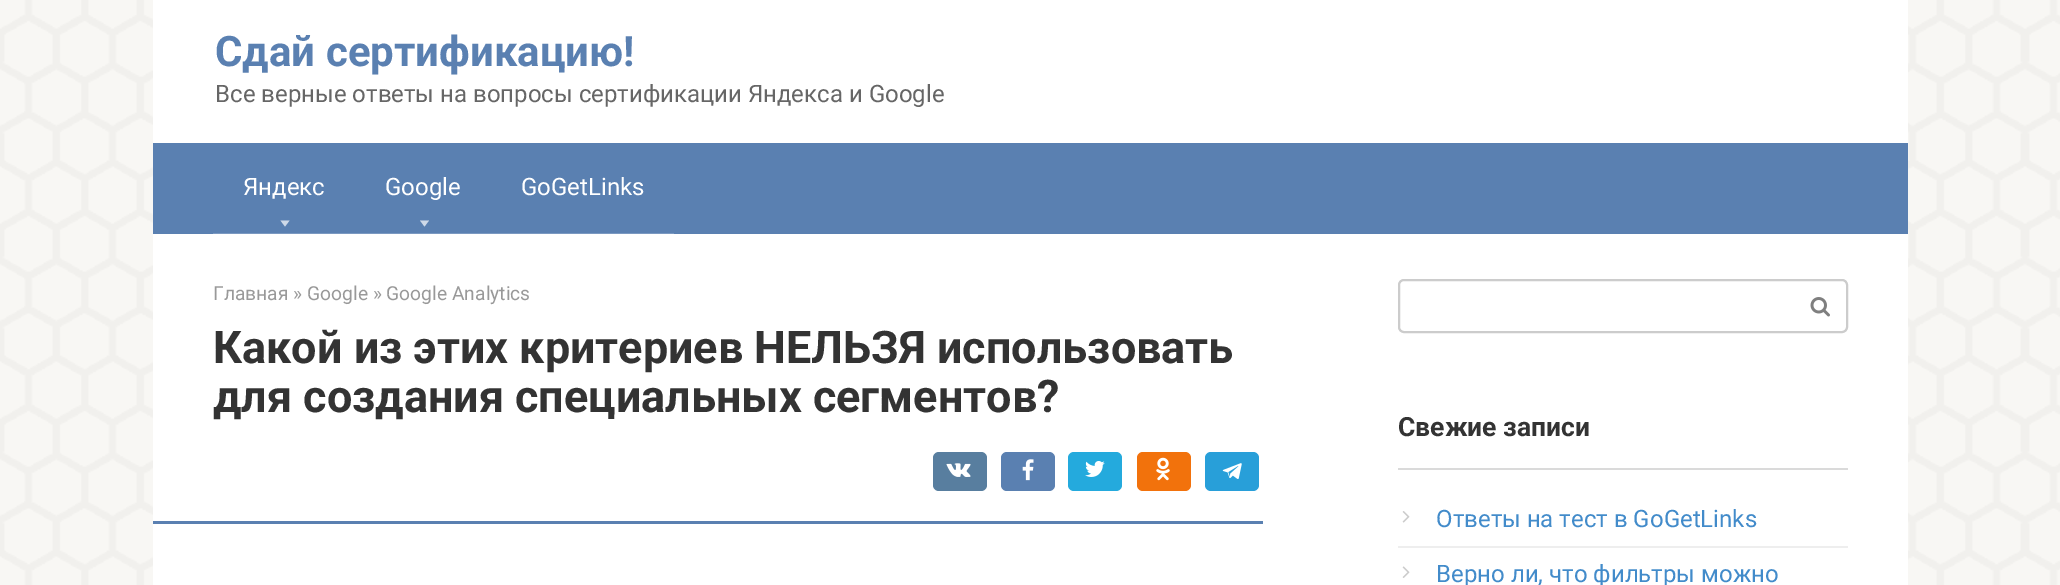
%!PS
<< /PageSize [2060 585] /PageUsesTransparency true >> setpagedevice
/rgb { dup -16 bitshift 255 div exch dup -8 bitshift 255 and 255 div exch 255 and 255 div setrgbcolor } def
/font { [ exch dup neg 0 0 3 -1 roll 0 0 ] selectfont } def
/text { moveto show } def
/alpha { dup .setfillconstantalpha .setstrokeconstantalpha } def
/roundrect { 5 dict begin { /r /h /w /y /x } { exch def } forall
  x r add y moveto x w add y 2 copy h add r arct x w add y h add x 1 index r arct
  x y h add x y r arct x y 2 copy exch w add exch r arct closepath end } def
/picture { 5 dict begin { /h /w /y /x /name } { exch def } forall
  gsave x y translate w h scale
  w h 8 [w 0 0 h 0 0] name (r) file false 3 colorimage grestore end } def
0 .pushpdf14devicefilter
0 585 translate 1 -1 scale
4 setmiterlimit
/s1 { /Roboto-Bold 42 font 16#5A80B1 rgb } def
/s2 { /Roboto-Regular 24 font 16#666666 rgb } def
/s3 { /Roboto-Regular 24 font 16#FFFFFF rgb } def
/s4 { /Roboto-Regular 19.25 font 16#999999 rgb } def
/s5 { /Roboto-Bold 45 font 16#333333 rgb } def
/s6 { /Roboto-Bold 26.5 font 16#333333 rgb } def
/s7 { /Roboto-Regular 24 font 16#428BCA rgb } def
16#F9F8F5 rgb
0 0 2060 585 rectfill
(pic1.raw) 0 0 2060 585 picture
16#FFFFFF rgb
153 0 1755 143 rectfill
s1
(Сдай сертификацию!) 215 66 text
s2
(Все верные ответы на вопросы сертификации Яндекса и Google) 215 102 text
16#5A80B1 rgb
153 143 1755 91 rectfill
0.2 alpha
16#FFFFFF rgb
213 233 143 1 rectfill
1 alpha
(Яндекс) 243 195 text
16#CED9E8 rgb
280.5 220.5 moveto 289.5 220.5 lineto 285 226.5 lineto closepath fill
0.2 alpha
16#FFFFFF rgb
356 233 135 1 rectfill
1 alpha
(Google) 385 195 text
16#CED9E8 rgb
420 220.5 moveto 429 220.5 lineto 424.5 226.5 lineto closepath fill
0.2 alpha
16#FFFFFF rgb
491 233 183 1 rectfill
1 alpha
(GoGetLinks) 521 195 text
153 234 1755 351 rectfill
s4
(Главная » Google » Google Analytics) 213 300 text
s5
(Какой из этих критериев НЕЛЬЗЯ использовать) 213 363 text
(для создания специальных сегментов?) 213 412 text
16#587E9F rgb
933 452 54 39 6 roundrect fill
(pic2.raw) 946 463 25 14 picture
16#5A80B1 rgb
1001 452 54 39 6 roundrect fill
(pic3.raw) 1022 459 12 22 picture
16#24AADD rgb
1068 452 54 39 6 roundrect fill
(pic4.raw) 1085 461 20 16 picture
16#F2720C rgb
1137 452 54 39 6 roundrect fill
(pic5.raw) 1156 457 14 24 picture
16#289FD9 rgb
1205 452 54 39 6 roundrect fill
(pic6.raw) 1222 463 20 16 picture
16#5A80B1 rgb
153 521 1110 3 rectfill
16#CCCCCC rgb
2 setlinewidth
1399 280 448 52 5 roundrect stroke
(pic7.raw) 1810 297 20 20 picture
16#DADADA rgb
1398 468 450 2 rectfill
s6
(Свежие записи) 1398 436 text
16#EEEEEE rgb
1398 546 450 2 rectfill
(pic8.raw) 1402 511 8 12 picture
s7
(Ответы на тест в GoGetLinks) 1436 527 text
(pic9.raw) 1402 566 8 12 picture
(Верно ли, что фильтры можно) 1436 582 text
.poppdf14devicefilter showpage
